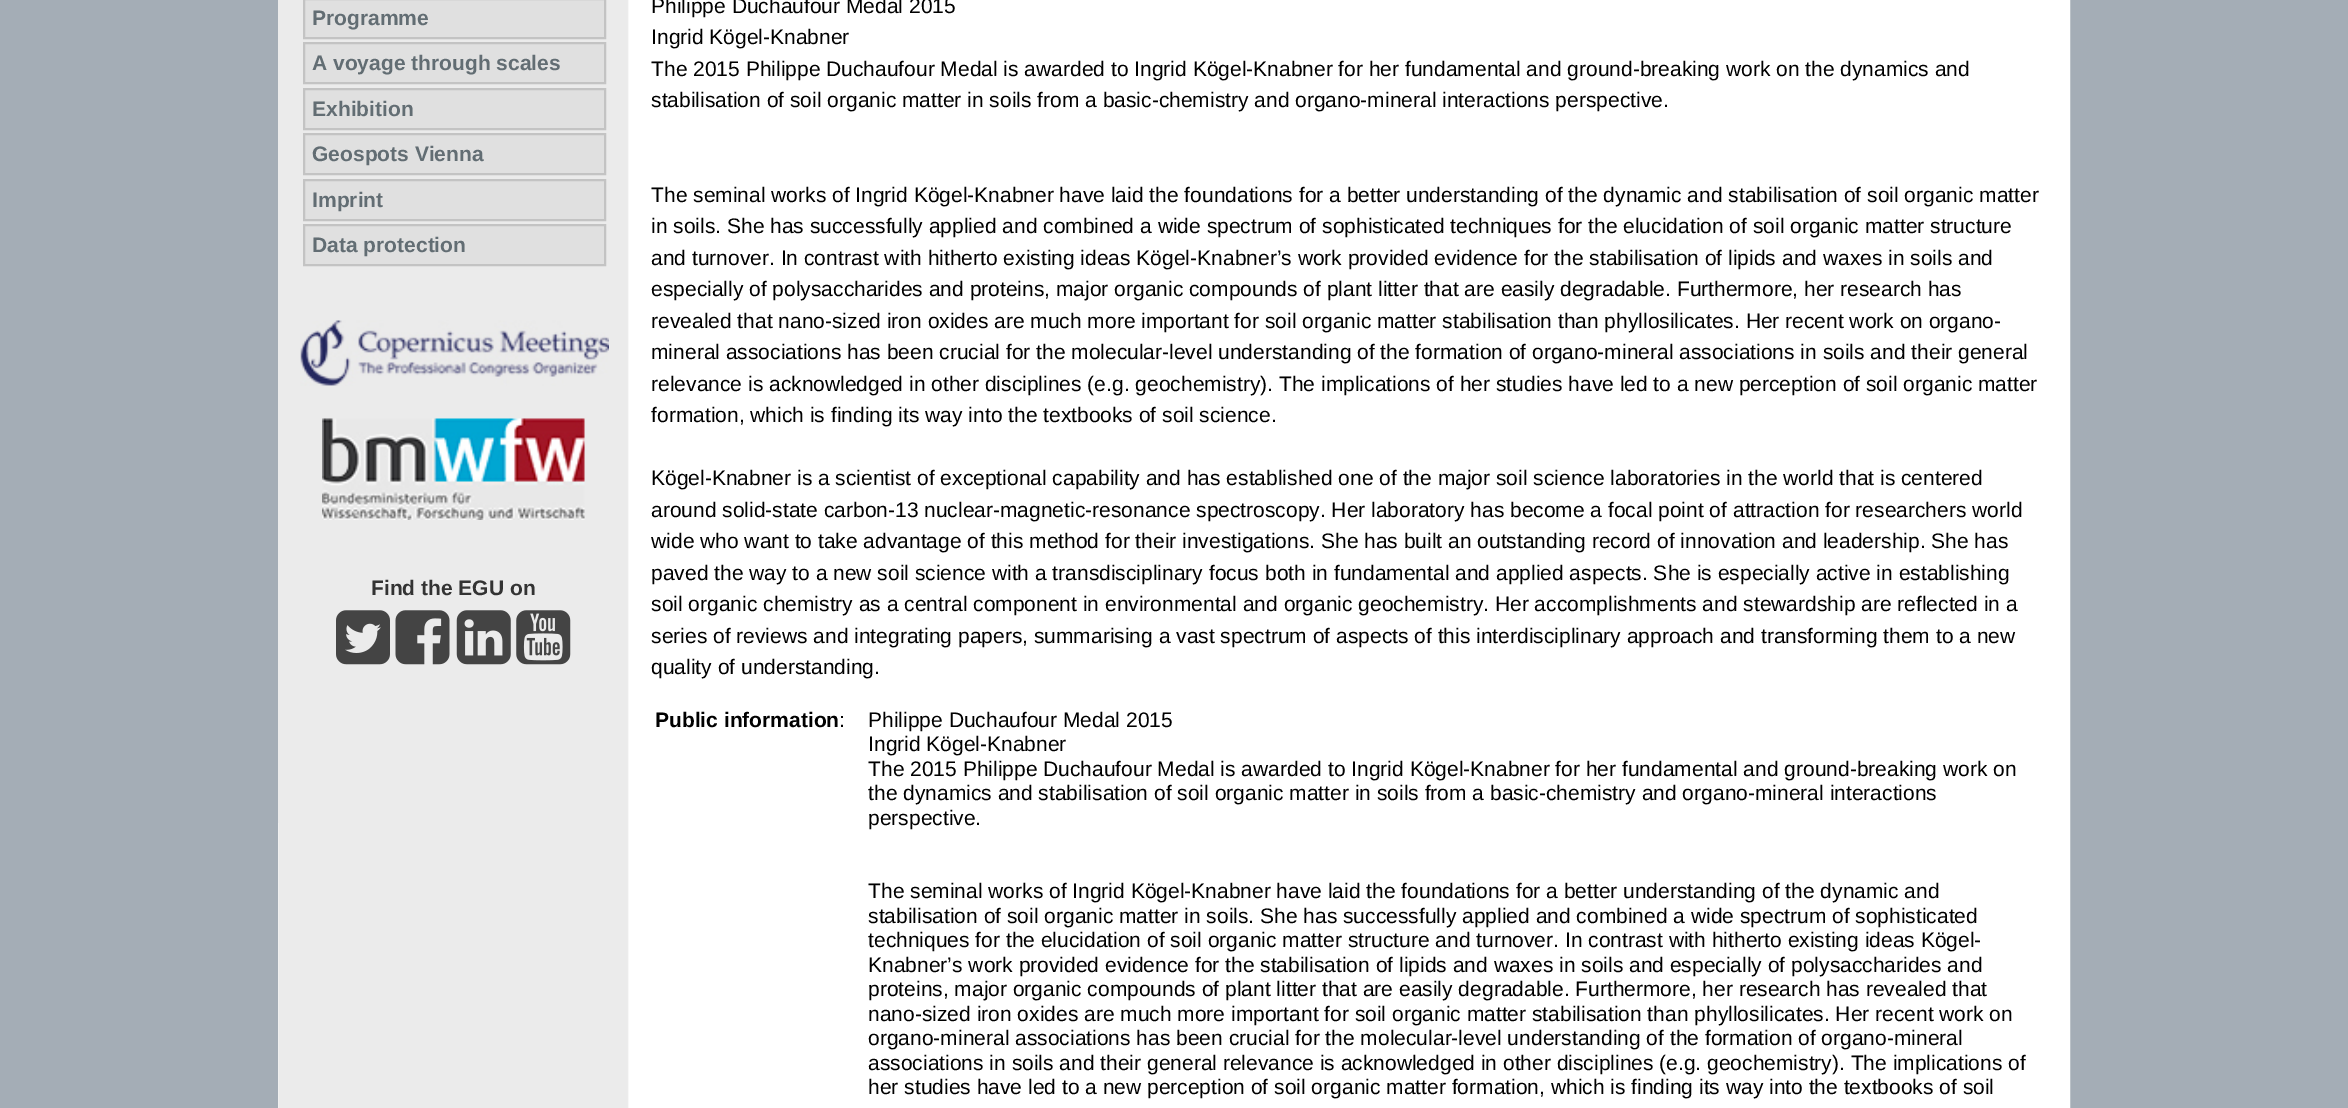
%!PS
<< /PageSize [2348 1108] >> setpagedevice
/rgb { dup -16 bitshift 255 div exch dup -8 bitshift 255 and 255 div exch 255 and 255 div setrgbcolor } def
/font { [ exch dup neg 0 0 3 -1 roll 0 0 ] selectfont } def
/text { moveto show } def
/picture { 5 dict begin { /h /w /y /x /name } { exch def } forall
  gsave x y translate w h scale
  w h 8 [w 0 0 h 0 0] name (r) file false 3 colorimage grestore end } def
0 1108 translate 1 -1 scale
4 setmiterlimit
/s1 { /LiberationSans-Bold 21 font 16#626D73 rgb } def
/s2 { /LiberationSans-Bold 21 font 16#333333 rgb } def
/s3 { /LiberationSans-Regular 21 font 16#000000 rgb } def
/s4 { /LiberationSans-Bold 21 font 16#000000 rgb } def
16#A4ADB6 rgb
0 0 2348 1108 rectfill
(pic1.raw) 278 0 1793 1108 picture
16#EBEBEB rgb
278 0 1 823 rectfill
16#E0E0E0 rgb
304 -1 moveto 605 -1 lineto 605 38 lineto 304 38 lineto closepath gsave fill grestore
16#C3C3C3 rgb
2 setlinewidth
stroke
s1
(Programme) 312 25 text
16#E0E0E0 rgb
304 43 moveto 605 43 lineto 605 83 lineto 304 83 lineto closepath gsave fill grestore
16#C3C3C3 rgb
stroke
s1
(A voyage through scales) 312 70 text
16#E0E0E0 rgb
304 89 moveto 605 89 lineto 605 129 lineto 304 129 lineto closepath gsave fill grestore
16#C3C3C3 rgb
stroke
s1
(Exhibition) 312 116 text
16#E0E0E0 rgb
304 134 moveto 605 134 lineto 605 174 lineto 304 174 lineto closepath gsave fill grestore
16#C3C3C3 rgb
stroke
s1
(Geospots Vienna) 312 161 text
16#E0E0E0 rgb
304 180 moveto 605 180 lineto 605 220 lineto 304 220 lineto closepath gsave fill grestore
16#C3C3C3 rgb
stroke
s1
(Imprint) 312 207 text
16#E0E0E0 rgb
304 225 moveto 605 225 lineto 605 265 lineto 304 265 lineto closepath gsave fill grestore
16#C3C3C3 rgb
stroke
s1
(Data protection) 312 252 text
(pic2.raw) 300 320 309 66 picture
(pic3.raw) 322 418 263 102 picture
s2
(Find the EGU on) 371 595 text
(pic4.raw) 336 610 54 55 picture
(pic5.raw) 395 610 55 55 picture
(pic6.raw) 456 610 55 55 picture
(pic7.raw) 516 610 55 55 picture
s3
(Philippe Duchaufour Medal 2015) 651 13 text
(Ingrid Kögel-Knabner) 651 44 text
(The 2015 Philippe Duchaufour Medal is awarded to Ingrid Kögel-Knabner for her fundamental and ground-breaking work on the dynamics and) 651 76 text
(stabilisation of soil organic matter in soils from a basic-chemistry and organo-mineral interactions perspective.) 651 107 text
(The seminal works of Ingrid Kögel-Knabner have laid the foundations for a better understanding of the dynamic and stabilisation of soil organic matter) 651 202 text
(in soils. She has successfully applied and combined a wide spectrum of sophisticated techniques for the elucidation of soil organic matter structure) 651 233 text
(and turnover. In contrast with hitherto existing ideas Kögel-Knabner’s work provided evidence for the stabilisation of lipids and waxes in soils and) 651 265 text
(especially of polysaccharides and proteins, major organic compounds of plant litter that are easily degradable. Furthermore, her research has) 651 296 text
(revealed that nano-sized iron oxides are much more important for soil organic matter stabilisation than phyllosilicates. Her recent work on organo-) 651 328 text
(mineral associations has been crucial for the molecular-level understanding of the formation of organo-mineral associations in soils and their general) 651 359 text
(relevance is acknowledged in other disciplines \(e.g. geochemistry\). The implications of her studies have led to a new perception of soil organic matter) 651 391 text
(formation, which is finding its way into the textbooks of soil science.) 651 422 text
(Kögel-Knabner is a scientist of exceptional capability and has established one of the major soil science laboratories in the world that is centered) 651 485 text
(around solid-state carbon-13 nuclear-magnetic-resonance spectroscopy. Her laboratory has become a focal point of attraction for researchers world) 651 517 text
(wide who want to take advantage of this method for their investigations. She has built an outstanding record of innovation and leadership. She has) 651 548 text
(paved the way to a new soil science with a transdisciplinary focus both in fundamental and applied aspects. She is especially active in establishing) 651 580 text
(soil organic chemistry as a central component in environmental and organic geochemistry. Her accomplishments and stewardship are reflected in a) 651 611 text
(series of reviews and integrating papers, summarising a vast spectrum of aspects of this interdisciplinary approach and transforming them to a new) 651 643 text
(quality of understanding.) 651 674 text
s4
(Public information) 655 727 text
s3
(:) 839 727 text
(Philippe Duchaufour Medal 2015) 868 727 text
(Ingrid Kögel-Knabner) 868 751 text
(The 2015 Philippe Duchaufour Medal is awarded to Ingrid Kögel-Knabner for her fundamental and ground-breaking work on) 868 776 text
(the dynamics and stabilisation of soil organic matter in soils from a basic-chemistry and organo-mineral interactions) 868 800 text
(perspective.) 868 825 text
(The seminal works of Ingrid Kögel-Knabner have laid the foundations for a better understanding of the dynamic and) 868 898 text
(stabilisation of soil organic matter in soils. She has successfully applied and combined a wide spectrum of sophisticated) 868 923 text
(techniques for the elucidation of soil organic matter structure and turnover. In contrast with hitherto existing ideas Kögel-) 868 947 text
(Knabner’s work provided evidence for the stabilisation of lipids and waxes in soils and especially of polysaccharides and) 868 972 text
(proteins, major organic compounds of plant litter that are easily degradable. Furthermore, her research has revealed that) 868 996 text
(nano-sized iron oxides are much more important for soil organic matter stabilisation than phyllosilicates. Her recent work on) 868 1021 text
(organo-mineral associations has been crucial for the molecular-level understanding of the formation of organo-mineral) 868 1045 text
(associations in soils and their general relevance is acknowledged in other disciplines \(e.g. geochemistry\). The implications of) 868 1070 text
(her studies have led to a new perception of soil organic matter formation, which is finding its way into the textbooks of soil) 868 1094 text
showpage
